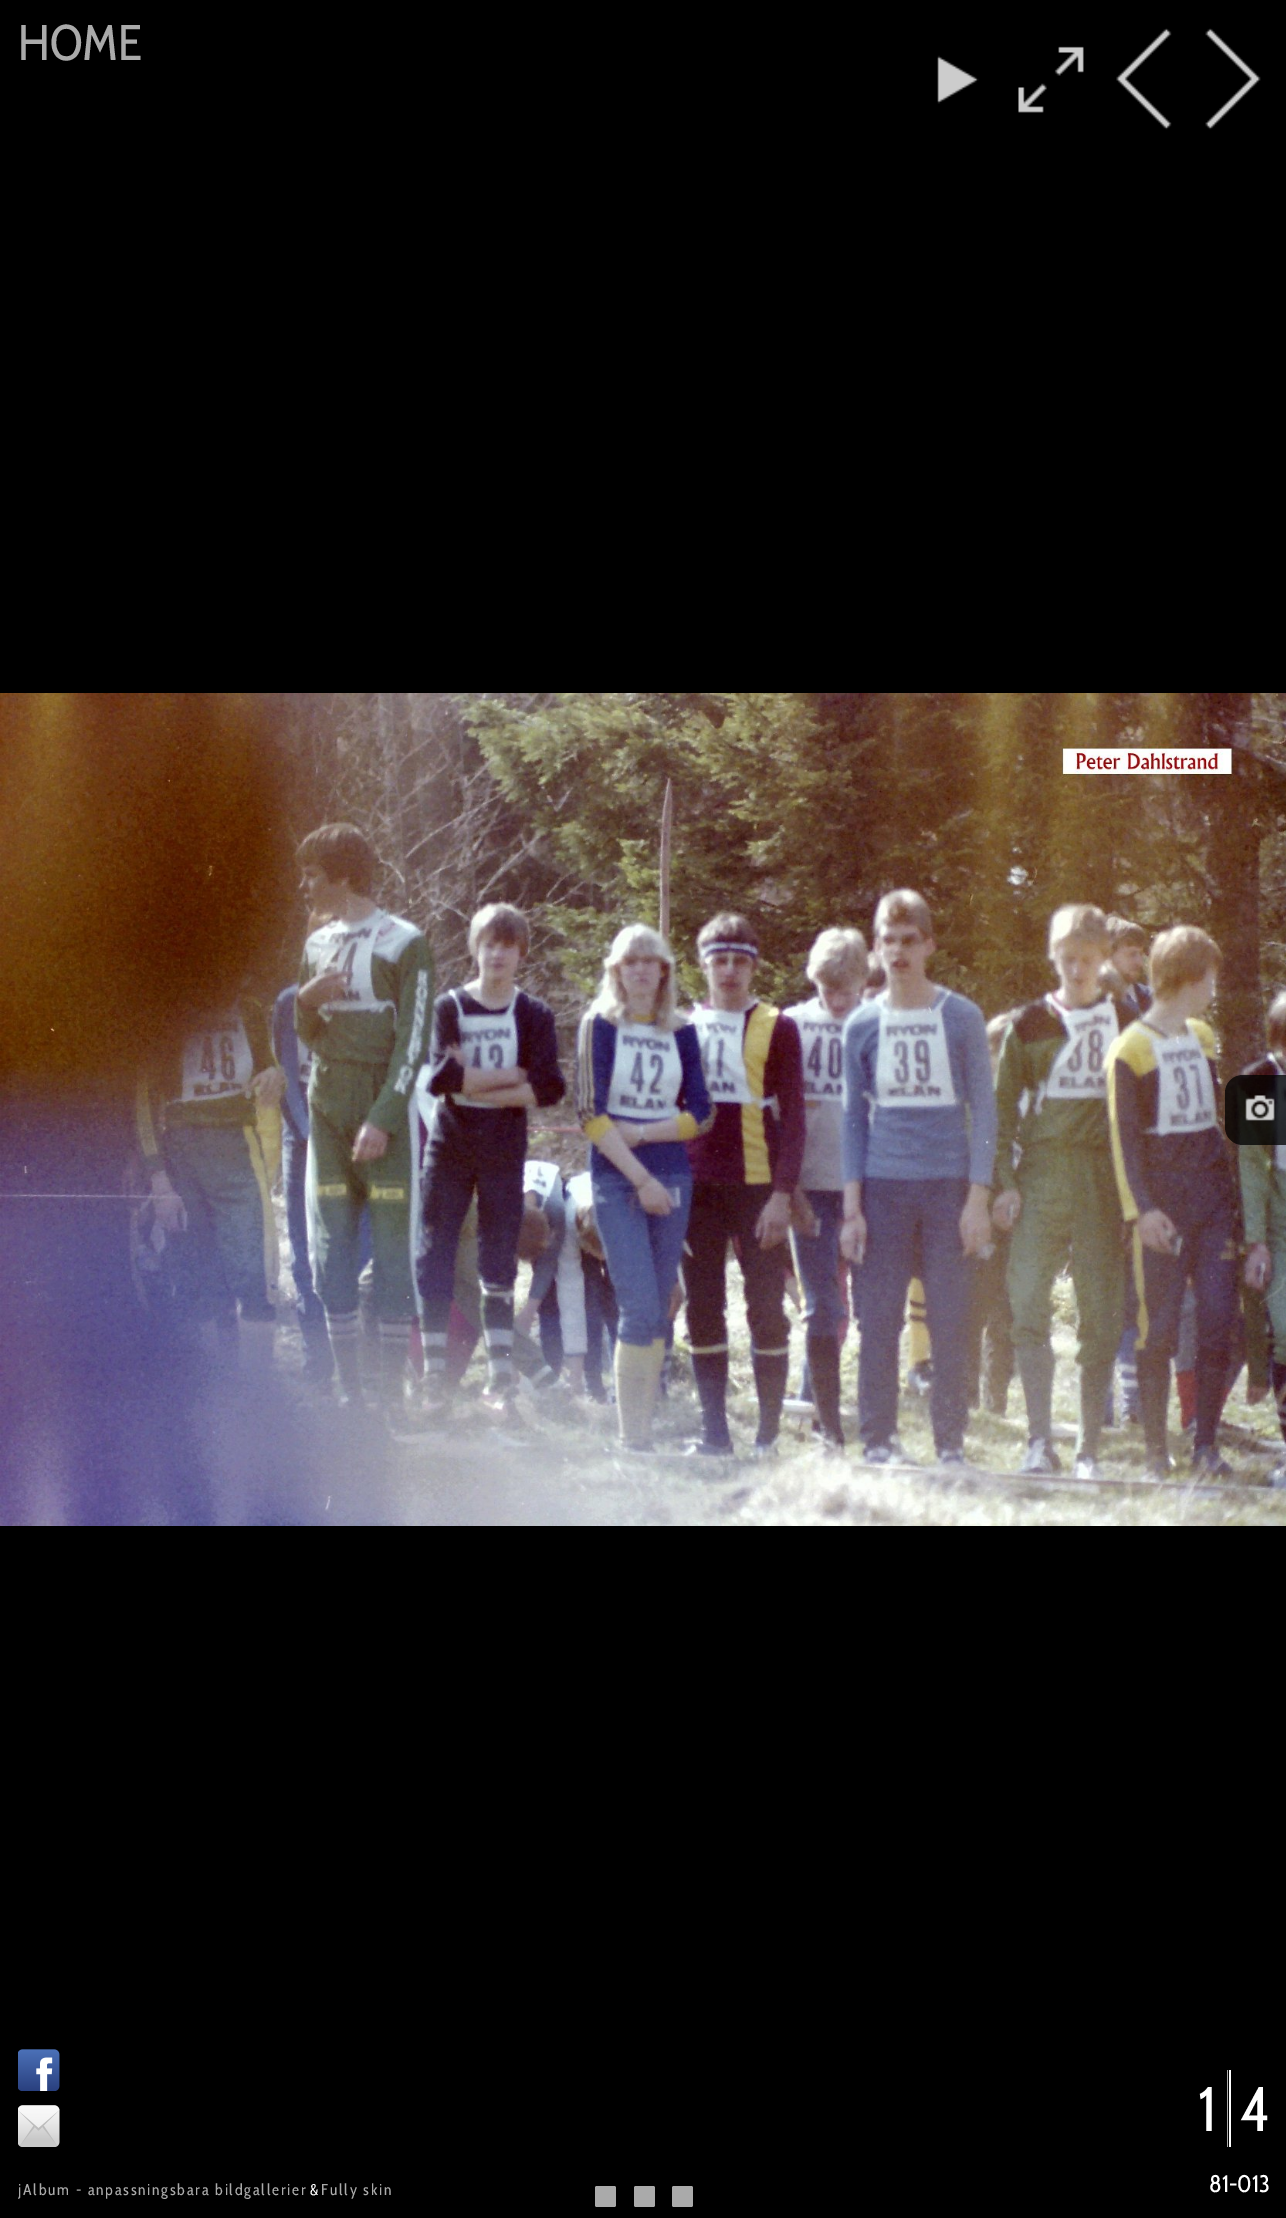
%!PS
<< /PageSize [1286 2218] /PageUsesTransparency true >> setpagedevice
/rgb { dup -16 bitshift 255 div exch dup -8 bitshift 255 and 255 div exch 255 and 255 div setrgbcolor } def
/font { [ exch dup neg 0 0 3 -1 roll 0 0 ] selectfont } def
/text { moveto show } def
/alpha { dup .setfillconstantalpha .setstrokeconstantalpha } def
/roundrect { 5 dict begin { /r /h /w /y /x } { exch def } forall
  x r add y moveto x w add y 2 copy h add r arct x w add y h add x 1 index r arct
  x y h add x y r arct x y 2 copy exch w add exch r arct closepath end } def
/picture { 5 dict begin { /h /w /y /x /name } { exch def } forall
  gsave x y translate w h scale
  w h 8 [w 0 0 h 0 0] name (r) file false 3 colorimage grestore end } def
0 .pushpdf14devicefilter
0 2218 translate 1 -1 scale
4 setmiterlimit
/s1 { /CabinCondensed-Regular 50 font 16#AAAAAA rgb } def
/s2 { /CabinCondensed-Regular 15.75 font 16#FFFFFF rgb } def
/s3 { /CabinCondensed-Regular 63 font 16#FFFFFF rgb } def
/s4 { /CabinCondensed-Regular 24 font 16#FFFFFF rgb } def
16#000000 rgb
0 0 1286 2218 rectfill
s1
(HOME) 18 60 text
(pic1.raw) 937 55 42 49 picture
(pic2.raw) 1018 46 66 67 picture
(pic3.raw) 1116 28 56 102 picture
(pic4.raw) 1205 28 56 102 picture
(pic5.raw) 0 693 1286 833 picture
0.75 alpha
16#000000 rgb
1243 1075 moveto 1286 1075 lineto 1286 1145 lineto 1243 1145 lineto 1233 1145 1225 1137 1225 1127 curveto 1225 1093 lineto 1225 1083 1233 1075 1243 1075 curveto closepath fill
1 alpha
(pic6.raw) 1245 1095 31 26 picture
(pic7.raw) 18 2049 42 42 picture
(pic8.raw) 18 2105 42 42 picture
/CabinCondensed-Regular 15.75 font
16#AAAAAA rgb
18 2195 moveto 1.75 0 (jAlbum - anpassningsbara bildgallerier) ashow
s2
(&) 310 2195 text
16#AAAAAA rgb
321 2195 moveto 1.75 0 (Fully skin) ashow
595 2186 21 21 2 roundrect fill
634 2186 21 21 2 roundrect fill
672 2186 21 21 2 roundrect fill
s3
(1) 1198 2131 text
(4) 1240 2131 text
16#AAAAAA rgb
1227 2070 moveto 1227 2147 lineto 1228 2147 lineto 1228 2070 lineto 1267 2070 lineto closepath fill
16#FFFFFF rgb
1229 2070 2 77 rectfill
s4
(81-013) 1209 2192 text
.poppdf14devicefilter showpage
